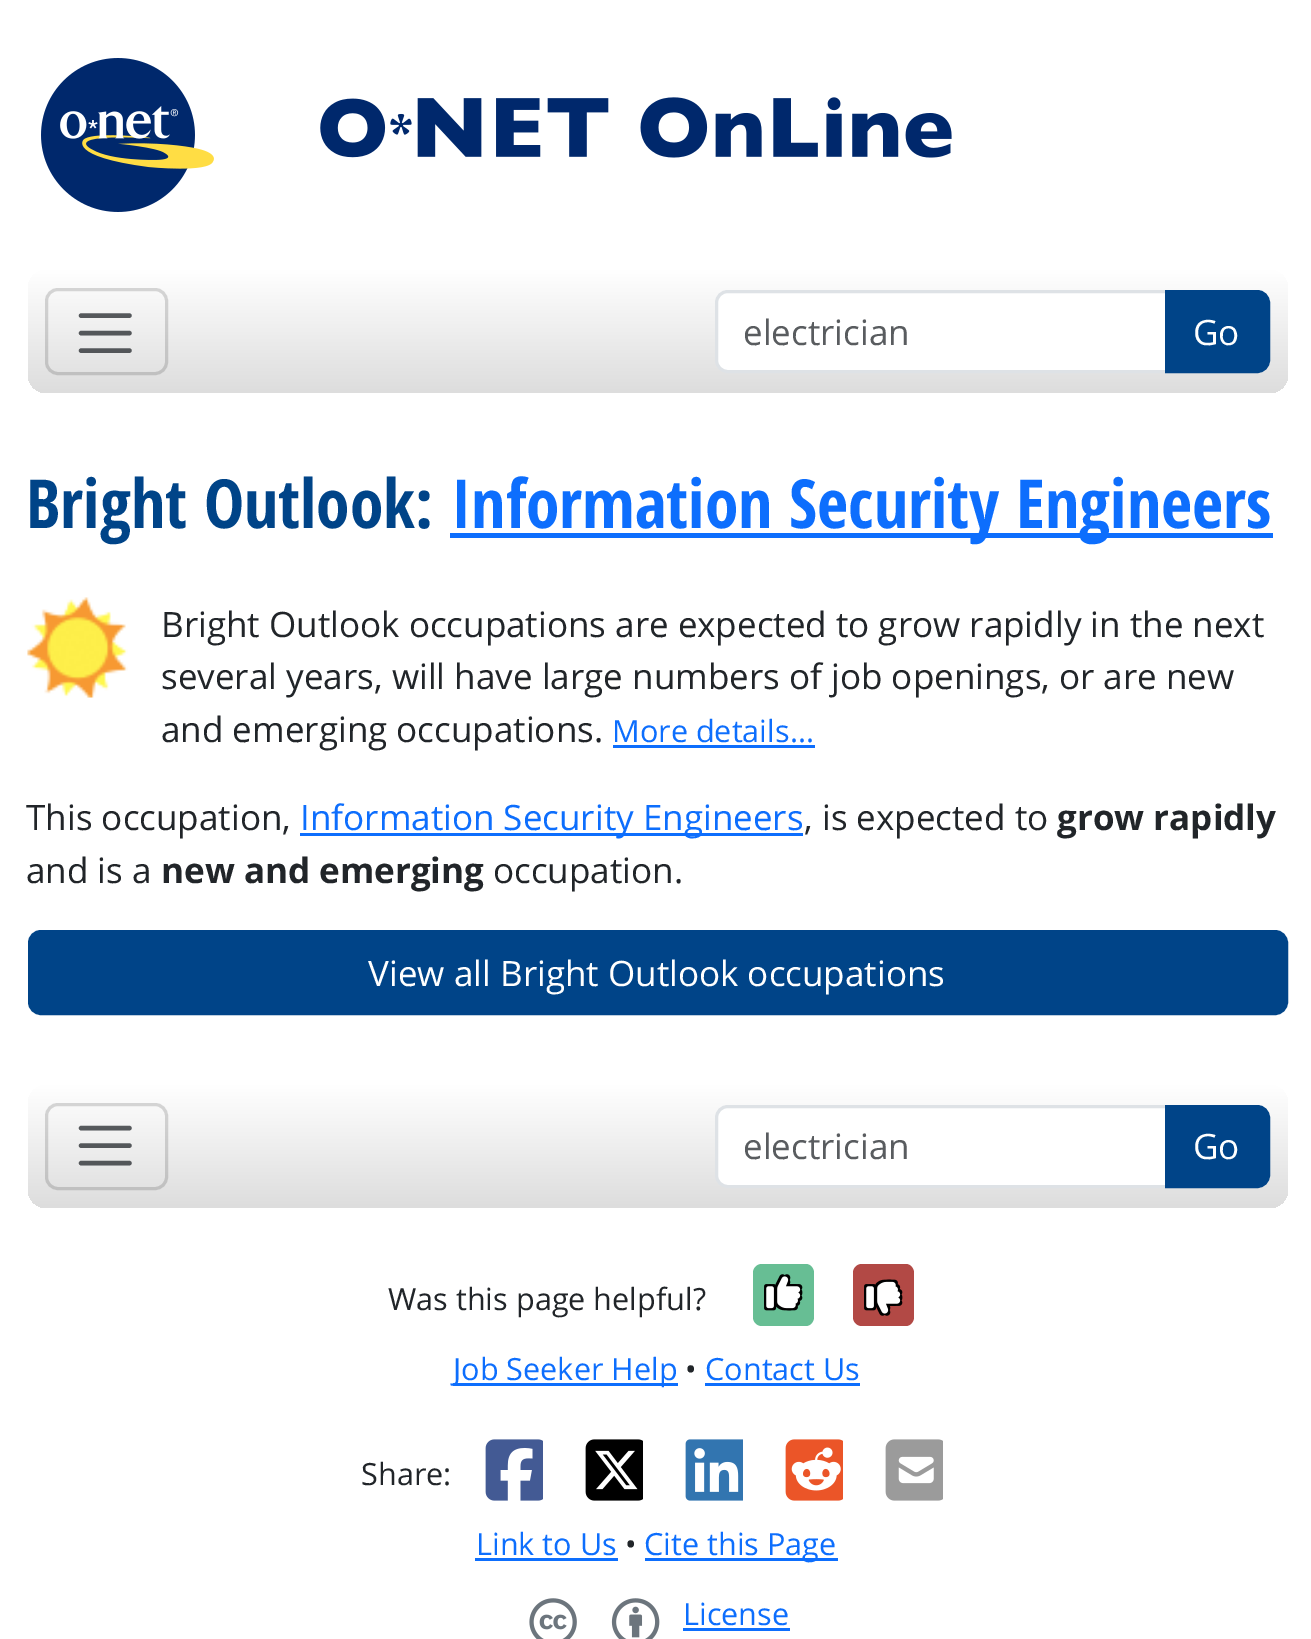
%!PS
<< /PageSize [1311 1639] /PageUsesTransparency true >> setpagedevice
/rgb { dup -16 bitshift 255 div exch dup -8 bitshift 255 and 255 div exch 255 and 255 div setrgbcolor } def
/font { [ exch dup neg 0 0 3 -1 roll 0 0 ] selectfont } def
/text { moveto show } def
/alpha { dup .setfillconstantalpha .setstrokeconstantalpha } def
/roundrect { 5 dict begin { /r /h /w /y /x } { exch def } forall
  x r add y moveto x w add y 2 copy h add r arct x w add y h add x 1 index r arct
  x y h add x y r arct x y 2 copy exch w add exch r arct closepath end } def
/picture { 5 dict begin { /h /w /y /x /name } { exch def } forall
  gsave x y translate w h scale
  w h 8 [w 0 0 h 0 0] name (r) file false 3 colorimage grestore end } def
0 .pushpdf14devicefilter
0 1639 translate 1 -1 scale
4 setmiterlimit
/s1 { /OpenSans-Regular 35 font 16#595C5F rgb } def
/s2 { /OpenSans-Regular 35 font 16#FFFFFF rgb } def
/s3 { /OpenSansCondensed-Bold 67.75 font 16#004488 rgb } def
/s4 { /OpenSansCondensed-Bold 67.75 font 16#0D6EFD rgb } def
/s5 { /OpenSans-Regular 35 font 16#212529 rgb } def
/s6 { /OpenSans-Regular 30.6 font 16#0D6EFD rgb } def
/s7 { /OpenSans-Regular 35 font 16#0D6EFD rgb } def
/s8 { /OpenSans-Bold 35 font 16#212529 rgb } def
/s9 { /OpenSans-Regular 30.6 font 16#212529 rgb } def
16#FFFFFF rgb
0 0 1311 1639 rectfill
(pic1.raw) 41 58 911 154 picture
gsave 28 270 1260 123 18 roundrect clip newpath
<< /ShadingType 2 /ColorSpace /DeviceRGB /Coords [658 270 658 393] /Extend [true true] /Function << /FunctionType 2 /Domain [0 1] /C0 [1 1 1] /C1 [0.867 0.867 0.867] /N 1 >> >> shfill grestore
0.15 alpha
16#000000 rgb
3 setlinewidth
46.5 289.5 120 84 11.5 roundrect stroke
0.75 alpha
16#212529 rgb
4.4 setlinewidth
1 setlinecap
81 315.5 moveto 129.5 315.5 lineto 81 333 moveto 129.5 333 lineto 81 350.5 moveto 129.5 350.5 lineto stroke
1 alpha
16#FFFFFF rgb
728 291.5 moveto 1166.5 291.5 lineto 1166.5 371.5 lineto 728 371.5 lineto 721.5 371.5 716.5 366.5 716.5 360 curveto 716.5 303 lineto 716.5 296.5 721.5 291.5 728 291.5 curveto closepath gsave fill grestore
16#DEE2E6 rgb
3 setlinewidth
0 setlinecap
stroke
s1
(electrician) 743 345 text
16#004488 rgb
1166.5 291.5 moveto 1257 291.5 lineto 1263.5 291.5 1268.5 296.5 1268.5 303 curveto 1268.5 360 lineto 1268.5 366.5 1263.5 371.5 1257 371.5 curveto 1166.5 371.5 lineto closepath gsave fill grestore
stroke
s2
(Go) 1193 345 text
s3
(Bright Outlook:) 26 528 text
16#0D6EFD rgb
450 533 823 5 rectfill
(Information Security Engineers) 451 528 text
(pic2.raw) 27 597 101 101 picture
s5
(Bright Outlook occupations are expected to grow rapidly in the next) 161 637 text
(several years, will have large numbers of job openings, or are new) 161 689 text
(and emerging occupations.) 161 742 text
s6
(More details...) 612 742 text
613 745 202 3 rectfill
s5
(This occupation,) 26 830 text
16#0D6EFD rgb
300 833 503 3 rectfill
(Information Security Engineers) 300 830 text
s5
(, is expected to) 804 830 text
s8
(grow rapidly) 1057 830 text
s5
(and is a) 26 883 text
s8
(new and emerging) 161 883 text
s5
(occupation.) 493 883 text
16#004488 rgb
29.5 931.5 1257 82 11.5 roundrect gsave fill grestore
stroke
s2
(View all Bright Outlook occupations) 368 986 text
gsave 28 1085 1260 123 18 roundrect clip newpath
<< /ShadingType 2 /ColorSpace /DeviceRGB /Coords [658 1085 658 1208] /Extend [true true] /Function << /FunctionType 2 /Domain [0 1] /C0 [1 1 1] /C1 [0.867 0.867 0.867] /N 1 >> >> shfill grestore
0.15 alpha
16#000000 rgb
46.5 1104.5 120 84 11.5 roundrect stroke
0.75 alpha
16#212529 rgb
4.4 setlinewidth
1 setlinecap
81 1128 moveto 129.5 1128 lineto 81 1145.5 moveto 129.5 1145.5 lineto 81 1163 moveto 129.5 1163 lineto stroke
1 alpha
16#FFFFFF rgb
728 1106.5 moveto 1166.5 1106.5 lineto 1166.5 1186.5 lineto 728 1186.5 lineto 721.5 1186.5 716.5 1181.5 716.5 1175 curveto 716.5 1118 lineto 716.5 1111.5 721.5 1106.5 728 1106.5 curveto closepath gsave fill grestore
16#DEE2E6 rgb
3 setlinewidth
0 setlinecap
stroke
s1
(electrician) 743 1159 text
16#004488 rgb
1166.5 1106.5 moveto 1257 1106.5 lineto 1263.5 1106.5 1268.5 1111.5 1268.5 1118 curveto 1268.5 1175 lineto 1268.5 1181.5 1263.5 1186.5 1257 1186.5 curveto 1166.5 1186.5 lineto closepath gsave fill grestore
stroke
s2
(Go) 1193 1159 text
s9
(Was this page helpful?) 388 1310 text
16#67BE94 rgb
762 1264 moveto 806 1264 lineto 810 1264 814 1268 814 1273 curveto 814 1317 lineto 814 1322 810 1326 806 1326 curveto 762 1326 lineto 757 1326 753 1322 753 1317 curveto 753 1273 lineto 753 1268 757 1264 762 1264 curveto closepath fill
(pic3.raw) 764 1274 33 32 picture
(pic6.raw) 769 1279 34 32 picture
(pic4.raw) 769 1274 34 30 picture
(pic7.raw) 764 1289 28 22 picture
(pic5.raw) 766 1276 35 33 picture
16#B24945 rgb
862 1264 moveto 906 1264 lineto 910 1264 914 1268 914 1273 curveto 914 1317 lineto 914 1322 910 1326 906 1326 curveto 862 1326 lineto 857 1326 853 1322 853 1317 curveto 853 1273 lineto 853 1268 857 1264 862 1264 curveto closepath fill
(pic8.raw) 864 1279 28 27 picture
(pic12.raw) 869 1289 34 27 picture
(pic9.raw) 869 1279 34 31 picture
(pic11.raw) 864 1289 32 27 picture
(pic10.raw) 866 1281 35 33 picture
16#0D6EFD rgb
453 1383 225 3 rectfill
(Job Seeker Help) 453 1380 text
s9
(•) 685 1380 text
s6
(Contact Us) 705 1380 text
705 1383 155 3 rectfill
s9
(Share:) 361 1485 text
(pic13.raw) 485 1439 58 62 picture
(pic14.raw) 585 1439 58 62 picture
(pic15.raw) 685 1439 58 62 picture
(pic16.raw) 785 1439 58 62 picture
(pic17.raw) 885 1439 58 62 picture
s6
(Link to Us) 476 1555 text
475 1558 143 3 rectfill
s9
(•) 625 1555 text
16#0D6EFD rgb
645 1558 193 3 rectfill
(Cite this Page) 644 1555 text
(pic18.raw) 529 1598 48 41 picture
(pic19.raw) 611 1598 49 41 picture
(License) 683 1625 text
683 1628 107 3 rectfill
.poppdf14devicefilter showpage
